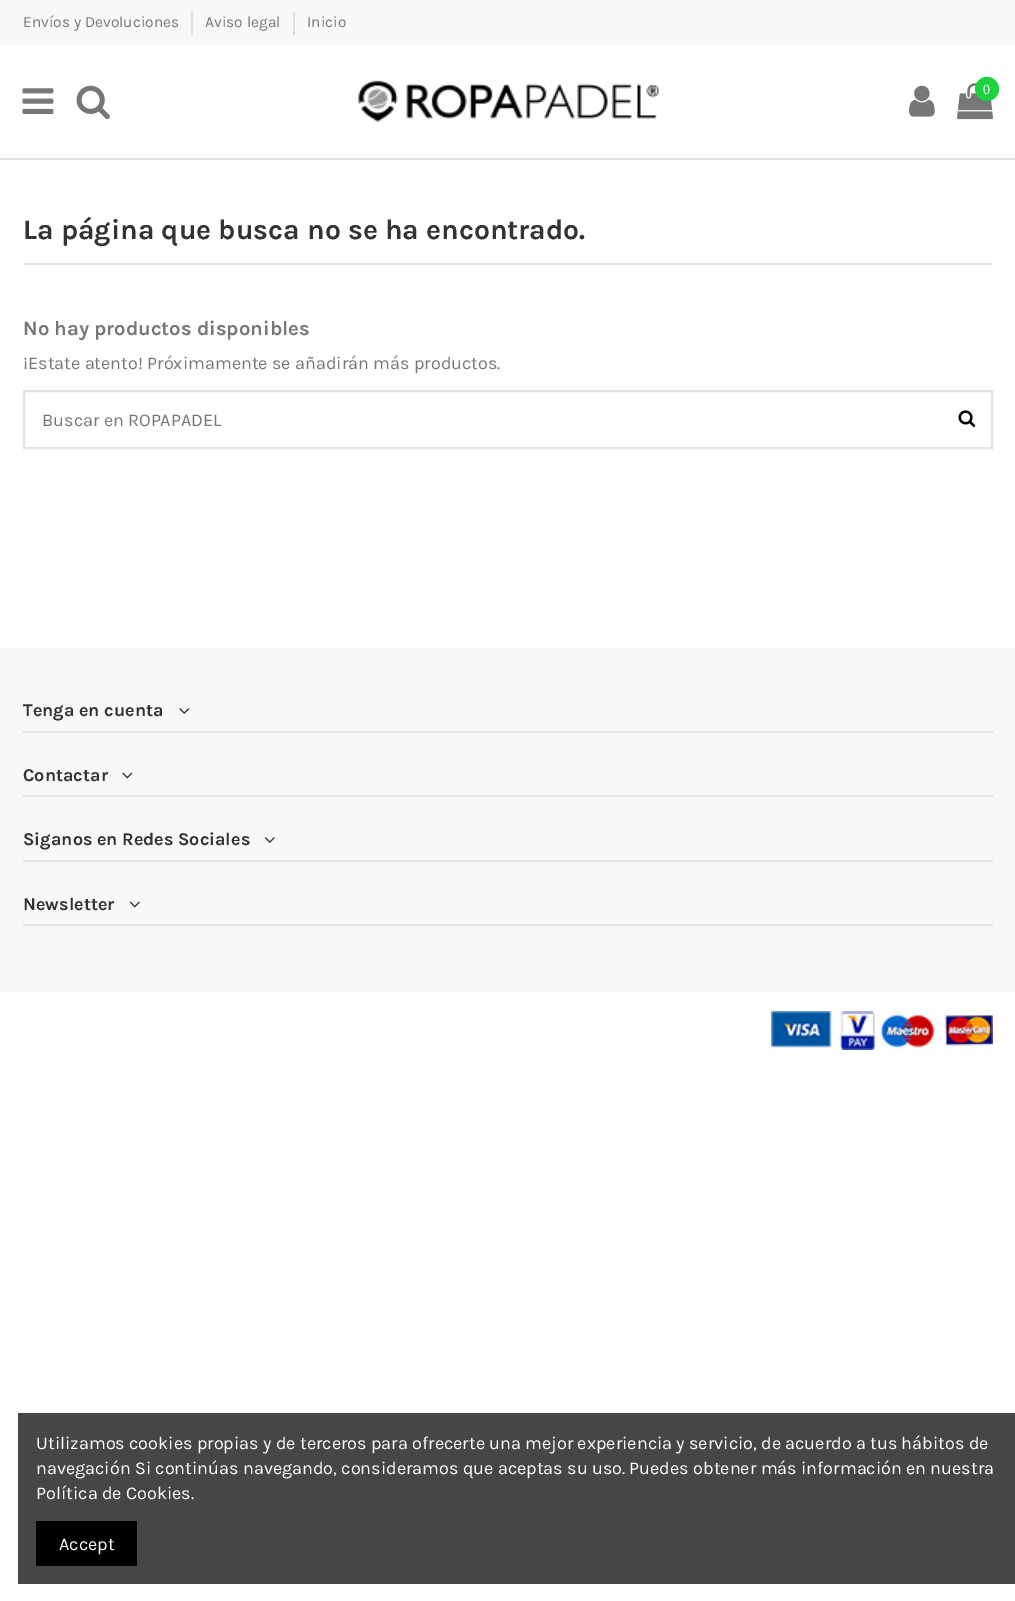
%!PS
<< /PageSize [1015 1601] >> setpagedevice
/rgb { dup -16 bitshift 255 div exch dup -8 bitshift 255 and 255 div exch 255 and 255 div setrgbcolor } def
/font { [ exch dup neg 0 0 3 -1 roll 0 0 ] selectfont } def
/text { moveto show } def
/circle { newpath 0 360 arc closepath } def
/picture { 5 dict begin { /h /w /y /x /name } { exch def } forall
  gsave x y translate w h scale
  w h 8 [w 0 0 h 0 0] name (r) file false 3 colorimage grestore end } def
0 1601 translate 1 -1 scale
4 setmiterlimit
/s1 { /Karla-Regular 15.5 font 16#777777 rgb } def
/s2 { /LiberationSerif-Regular 14 font 16#FFFFFF rgb } def
/s3 { /Karla-Bold 28.25 font 16#333333 rgb } def
/s4 { /Karla-Bold 20.25 font 16#777777 rgb } def
/s5 { /Karla-Regular 18 font 16#777777 rgb } def
/s6 { /Karla-Bold 18 font 16#333333 rgb } def
/s7 { /Karla-Regular 18 font 16#FFFFFF rgb } def
16#FFFFFF rgb
0 0 1015 1601 rectfill
16#F8F8F8 rgb
0 0 1015 45 rectfill
s1
(Envíos y Devoluciones) 23 27 text
16#DEDEDE rgb
191 12 2 23 rectfill
s1
(Aviso legal) 205 27 text
16#DEDEDE rgb
293 12 2 23 rectfill
s1
(Inicio) 307 27 text
16#E3E3E3 rgb
0 158 1015 2 rectfill
(pic1.raw) 22 88 32 26 picture
(pic2.raw) 76 85 34 35 picture
(pic3.raw) 358 80 301 42 picture
(pic4.raw) 909 85 26 32 picture
(pic5.raw) 957 83 36 37 picture
16#1BD33F rgb
987 89 12 circle fill
s2
(0) 983 94 text
16#E3E3E3 rgb
23 263 970 2 rectfill
s3
(La página que busca no se ha encontrado.) 23 239 text
s4
(No hay productos disponibles) 23 335 text
s5
(¡Estate atento! Próximamente se añadirán más productos.) 23 369 text
16#E3E3E3 rgb
2 setlinewidth
24 391 968 57 rectstroke
s5
(Buscar en ROPAPADEL) 42 426 text
(pic6.raw) 958 410 18 17 picture
16#F8F8F8 rgb
0 648 1015 344 rectfill
16#E3E3E3 rgb
23 731 970 2 rectfill
s6
(Tenga en cuenta) 23 716 text
(pic7.raw) 179 708 11 6 picture
16#E3E3E3 rgb
23 795 970 2 rectfill
s6
(Contactar) 23 781 text
(pic8.raw) 122 772 11 7 picture
16#E3E3E3 rgb
23 860 970 2 rectfill
s6
(Siganos en Redes Sociales) 23 845 text
(pic9.raw) 264 837 11 6 picture
16#E3E3E3 rgb
23 924 970 2 rectfill
s6
(Newsletter) 23 910 text
(pic10.raw) 129 901 11 7 picture
(pic11.raw) 771 1011 222 39 picture
16#464646 rgb
18 1413 997 171 rectfill
s7
(Utilizamos cookies propias y de terceros para ofrecerte una mejor experiencia y servicio, de acuerdo a tus hábitos de) 36 1449 text
(navegación Si continúas navegando, consideramos que aceptas su uso. Puedes obtener más información en nuestra) 36 1474 text
(Política de Cookies.) 36 1499 text
16#000000 rgb
36 1521 101 45 rectfill
s7
(Accept) 59 1550 text
showpage
